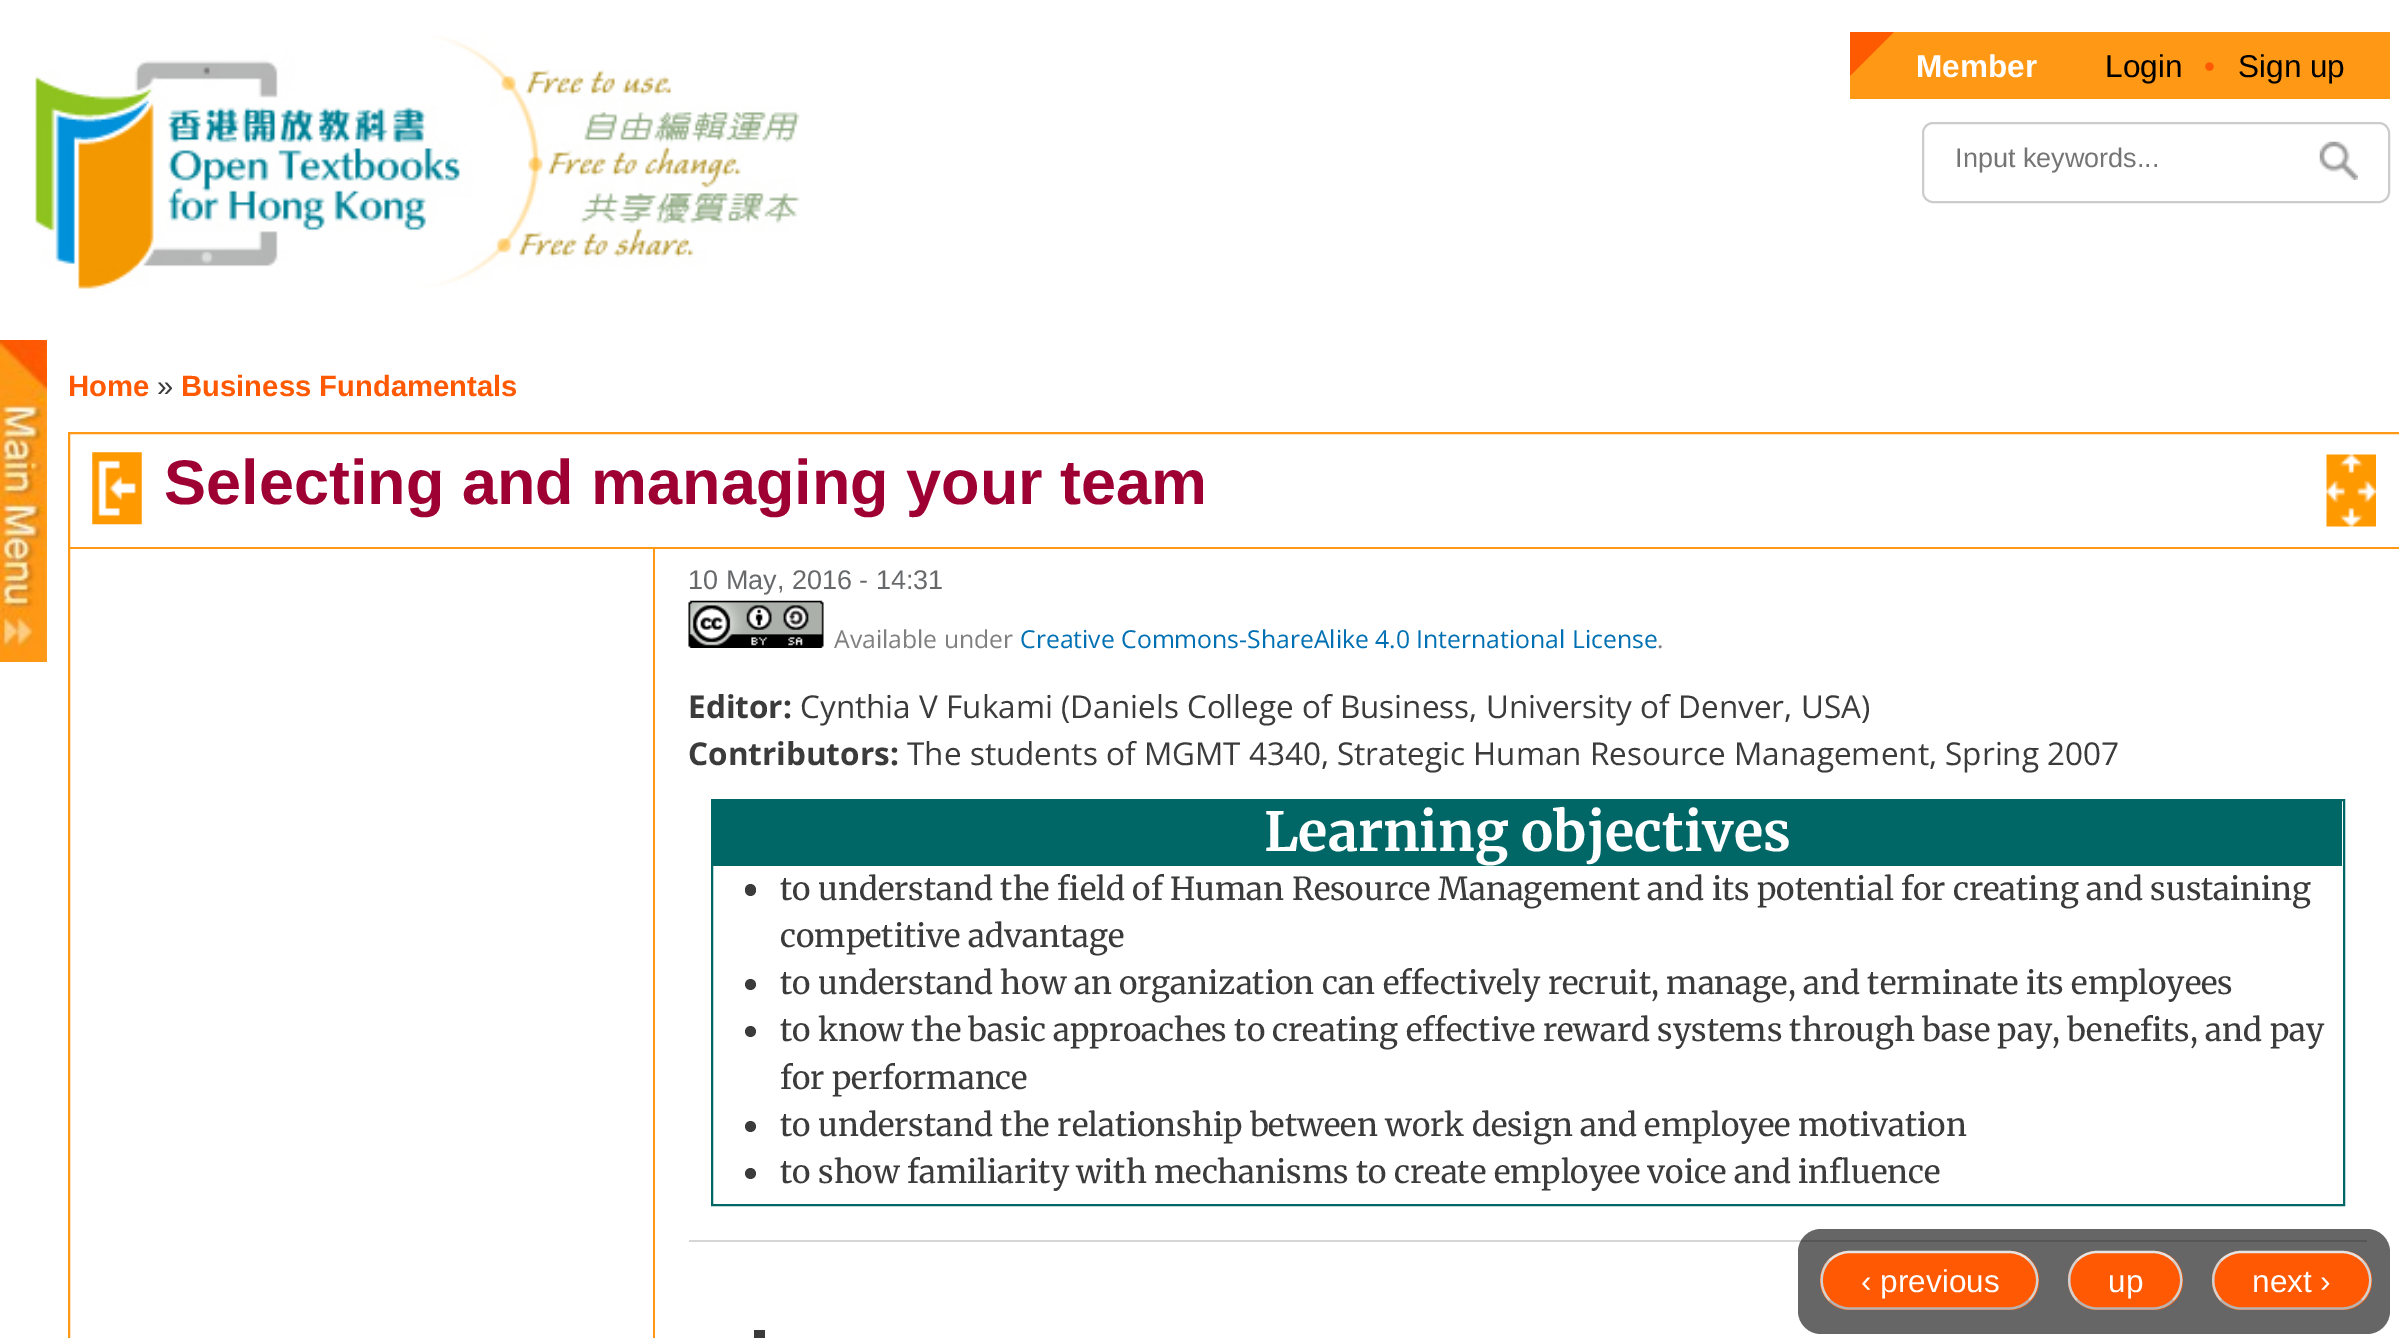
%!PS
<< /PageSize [2399 1338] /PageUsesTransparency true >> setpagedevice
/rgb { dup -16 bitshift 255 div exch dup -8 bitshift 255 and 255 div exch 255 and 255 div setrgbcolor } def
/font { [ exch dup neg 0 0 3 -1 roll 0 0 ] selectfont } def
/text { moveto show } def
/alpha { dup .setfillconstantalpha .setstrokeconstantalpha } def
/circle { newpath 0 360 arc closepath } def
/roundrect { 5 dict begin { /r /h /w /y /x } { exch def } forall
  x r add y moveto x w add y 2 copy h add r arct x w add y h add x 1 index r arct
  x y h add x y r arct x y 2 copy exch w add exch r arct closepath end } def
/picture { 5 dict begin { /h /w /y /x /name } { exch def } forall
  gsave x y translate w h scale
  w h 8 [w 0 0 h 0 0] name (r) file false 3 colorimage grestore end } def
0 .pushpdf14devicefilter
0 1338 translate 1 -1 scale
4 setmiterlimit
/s1 { /LiberationSans-Bold 31.5 font 16#FFFFFF rgb } def
/s2 { /LiberationSans-Regular 31.5 font 16#000000 rgb } def
/s3 { /LiberationSans-Regular 31.5 font 16#FF5903 rgb } def
/s4 { /LiberationSans-Regular 27 font 16#757575 rgb } def
/s5 { /LiberationSans-Bold 29.25 font 16#FF5903 rgb } def
/s6 { /LiberationSans-Regular 29.25 font 16#3B3B3B rgb } def
/s7 { /LiberationSans-Bold 63 font 16#9F0033 rgb } def
/s8 { /LiberationSans-Regular 27 font 16#68696B rgb } def
/s9 { /OpenSans-Regular 24.75 font 16#808080 rgb } def
/s10 { /OpenSans-Regular 24.75 font 16#0070B3 rgb } def
/s11 { /OpenSans-Bold 31.5 font 16#3B3B3B rgb } def
/s12 { /OpenSans-Regular 31.5 font 16#3B3B3B rgb } def
/s13 { /Merriweather-Bold 54 font 16#FFFFFF rgb } def
/s14 { /Merriweather-Regular 31.5 font 16#3B3B3B rgb } def
/s15 { /LiberationSans-Regular 31.5 font 16#FFFFFF rgb } def
16#FFFFFF rgb
0 0 2399 1338 rectfill
(pic1.raw) 35 36 765 258 picture
16#FF9815 rgb
1850 32 540 67 rectfill
16#FE5A01 rgb
1850 32 moveto 1894 32 lineto 1850 76 lineto closepath fill
s1
(Member) 1916 77 text
s2
(Login) 2105 77 text
s3
(•) 2204 77 text
s2
(Sign up) 2238 77 text
16#CCCCCC rgb
2 setlinewidth
1923 123 466 79 10 roundrect stroke
s4
(Input keywords...) 1955 167 text
(pic2.raw) 2319 141 39 39 picture
s5
(Home) 68 396 text
s6
(») 157 396 text
s5
(Business Fundamentals) 181 396 text
16#FF9815 rgb
69 433 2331 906 rectstroke
(pic3.raw) 0 340 47 322 picture
70 547 2329 2 rectfill
(pic4.raw) 92 452 50 73 picture
s7
(Selecting and managing your team) 164 504 text
(pic5.raw) 2326 454 50 73 picture
16#FF9815 rgb
653 549 2 789 rectfill
s8
(10 May, 2016 - 14:31) 688 589 text
(pic6.raw) 688 600 136 48 picture
s9
(Available under) 834 648 text
s10
(Creative Commons-ShareAlike 4.0 International License) 1020 648 text
s9
(.) 1657 648 text
s11
(Editor:) 688 718 text
s12
(Cynthia V Fukami \(Daniels College of Business, University of Denver, USA\)) 800 718 text
s11
(Contributors:) 688 765 text
s12
(The students of MGMT 4340, Strategic Human Resource Management, Spring 2007) 907 765 text
16#006666 rgb
712 800 1632 405 rectstroke
713 801 1629 65 rectfill
s13
(Learning objectives) 1264 851 text
16#3B3B3B rgb
745 884 11 12 5.5 roundrect fill
s14
(to understand the field of Human Resource Management and its potential for creating and sustaining) 780 900 text
(competitive advantage) 780 947 text
750.5 984.5 5.5 circle fill
(to understand how an organization can effectively recruit, manage, and terminate its employees) 780 994 text
750.5 1031.5 5.5 circle fill
(to know the basic approaches to creating effective reward systems through base pay, benefits, and pay) 780 1041 text
(for performance) 780 1089 text
750.5 1126.5 5.5 circle fill
(to understand the relationship between work design and employee motivation) 780 1136 text
750.5 1173.5 5.5 circle fill
(to show familiarity with mechanisms to create employee voice and influence) 780 1183 text
16#D6D6D6 rgb
689 1240 1678 2 rectfill
16#3B3B3B rgb
754 1330 11 8 rectfill
0.6 alpha
16#000000 rgb
1798 1229 592 105 23 roundrect fill
1 alpha
16#FF5903 rgb
1820 1251 219 59 29.5 roundrect fill
s15
(‹ previous) 1861 1292 text
16#E4E4E4 rgb
2.2 setlinewidth
1829.5 1260.5 moveto 1835 1255 1842 1252 1849.5 1252 curveto 2009 1252 lineto 2016.5 1252 2024 1255 2029 1260.5 curveto stroke
16#D2D2D2 rgb
2029 1260.5 moveto 2040 1271 2040 1289.5 2029 1300 curveto stroke
16#B4B4B4 rgb
2029 1300 moveto 2024 1305.5 2016.5 1308.5 2009 1308.5 curveto 1849.5 1308.5 lineto 1842 1308.5 1835 1305.5 1829.5 1300 curveto stroke
16#D2D2D2 rgb
1829.5 1300 moveto 1819 1289.5 1819 1271 1829.5 1260.5 curveto stroke
16#FF5903 rgb
2068 1251 115 59 29.5 roundrect fill
s15
(up) 2108 1292 text
16#E4E4E4 rgb
2077 1260.5 moveto 2082.5 1255 2089.5 1252 2097 1252 curveto 2153 1252 lineto 2160.5 1252 2168 1255 2173 1260.5 curveto stroke
16#D2D2D2 rgb
2173 1260.5 moveto 2184 1271 2184 1289.5 2173 1300 curveto stroke
16#B4B4B4 rgb
2173 1300 moveto 2168 1305.5 2160.5 1308.5 2153 1308.5 curveto 2097 1308.5 lineto 2089.5 1308.5 2082.5 1305.5 2077 1300 curveto stroke
16#D2D2D2 rgb
2077 1300 moveto 2066.5 1289.5 2066.5 1271 2077 1260.5 curveto stroke
16#FF5903 rgb
2212 1251 160 59 29.5 roundrect fill
s15
(next ›) 2252 1292 text
16#E4E4E4 rgb
2221 1260.5 moveto 2226.5 1255 2233.5 1252 2241 1252 curveto 2342 1252 lineto 2349.5 1252 2357 1255 2362 1260.5 curveto stroke
16#D2D2D2 rgb
2362 1260.5 moveto 2373 1271 2373 1289.5 2362 1300 curveto stroke
16#B4B4B4 rgb
2362 1300 moveto 2357 1305.5 2349.5 1308.5 2342 1308.5 curveto 2241 1308.5 lineto 2233.5 1308.5 2226.5 1305.5 2221 1300 curveto stroke
16#D2D2D2 rgb
2221 1300 moveto 2210.5 1289.5 2210.5 1271 2221 1260.5 curveto stroke
.poppdf14devicefilter showpage
